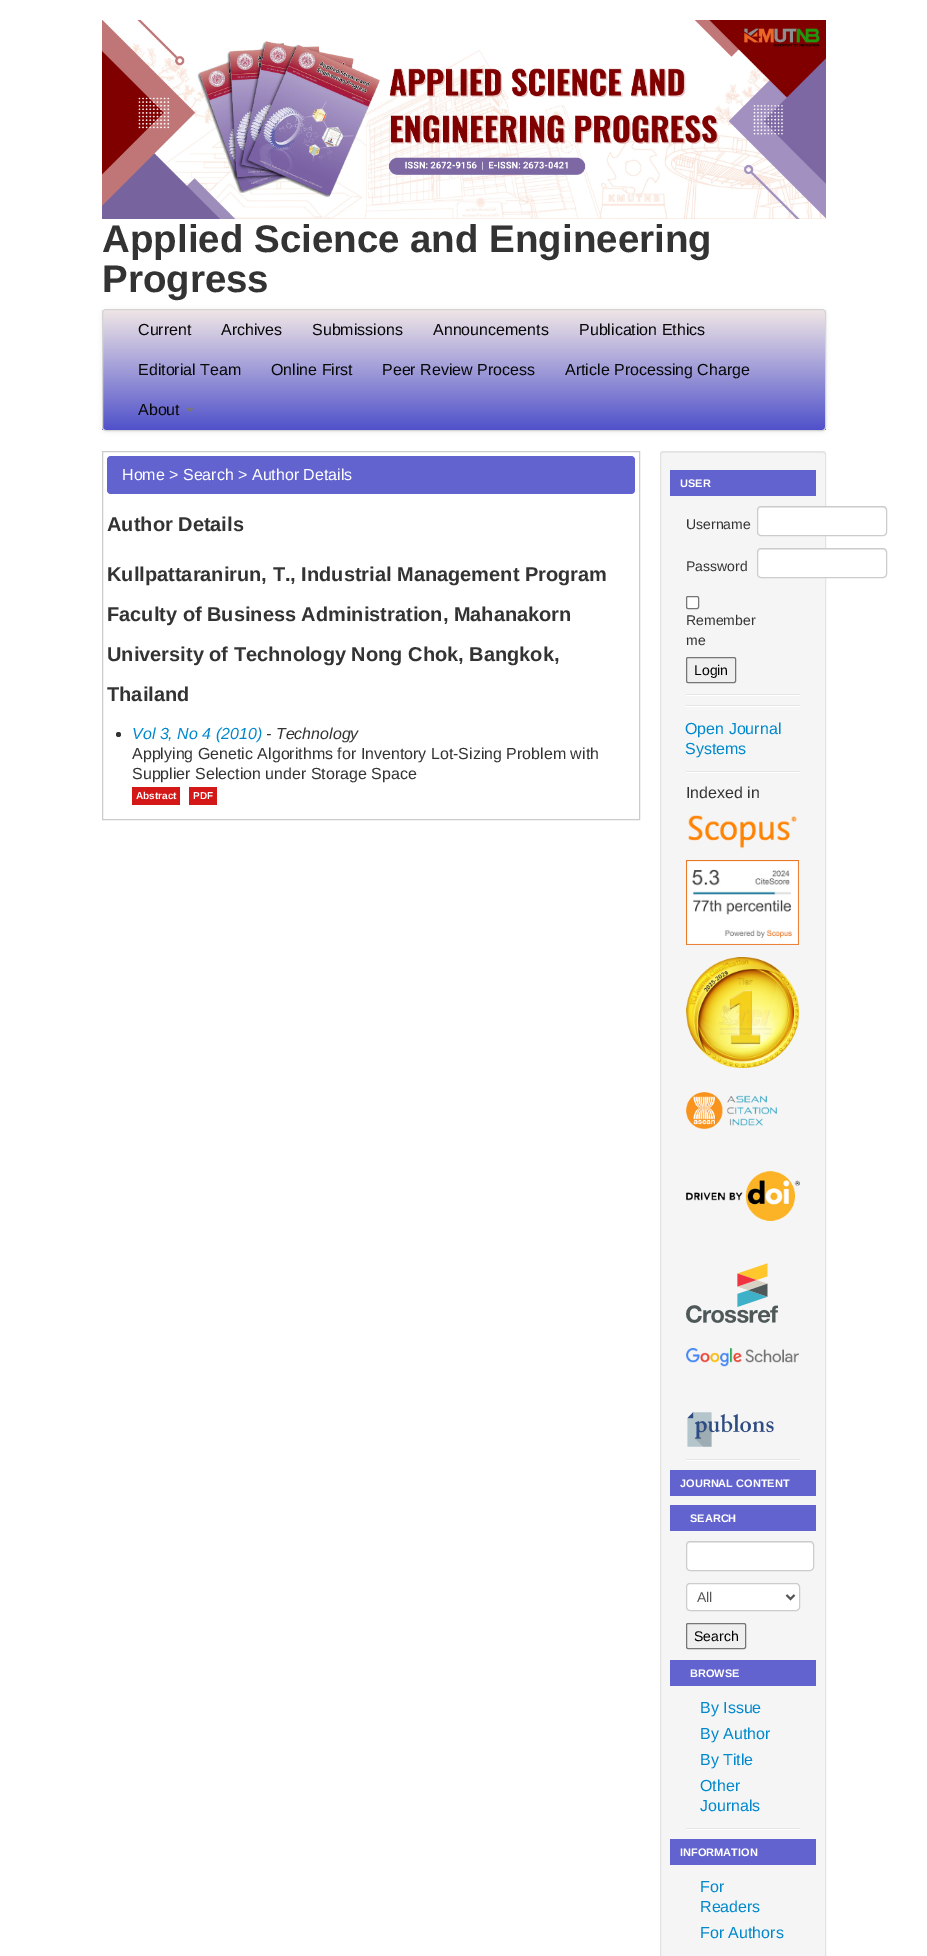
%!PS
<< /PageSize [927 1956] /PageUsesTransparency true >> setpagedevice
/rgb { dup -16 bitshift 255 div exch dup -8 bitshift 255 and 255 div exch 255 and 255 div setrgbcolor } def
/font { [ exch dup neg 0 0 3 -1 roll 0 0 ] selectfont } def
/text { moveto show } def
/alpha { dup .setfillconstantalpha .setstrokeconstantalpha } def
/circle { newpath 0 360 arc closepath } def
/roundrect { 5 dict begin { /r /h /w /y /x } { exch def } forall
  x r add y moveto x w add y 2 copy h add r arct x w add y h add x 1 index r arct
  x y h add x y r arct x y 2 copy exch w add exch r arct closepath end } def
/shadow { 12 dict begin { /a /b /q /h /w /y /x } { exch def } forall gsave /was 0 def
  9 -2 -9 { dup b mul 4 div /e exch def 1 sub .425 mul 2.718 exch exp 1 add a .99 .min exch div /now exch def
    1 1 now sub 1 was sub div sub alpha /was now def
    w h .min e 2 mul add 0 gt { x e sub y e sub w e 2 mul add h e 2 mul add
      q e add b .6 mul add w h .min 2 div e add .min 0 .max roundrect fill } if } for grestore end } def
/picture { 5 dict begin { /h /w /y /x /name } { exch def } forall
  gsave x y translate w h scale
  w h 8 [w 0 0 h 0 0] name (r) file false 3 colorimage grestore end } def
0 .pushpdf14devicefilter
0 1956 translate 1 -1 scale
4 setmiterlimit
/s1 { /LiberationSans-Bold 38.5 font 16#333333 rgb } def
/s2 { /LiberationSans-Regular 16 font 16#080808 rgb } def
/s3 { /LiberationSans-Regular 16 font 16#FFFFFF rgb } def
/s4 { /LiberationSans-Bold 20 font 16#333333 rgb } def
/s5 { /LiberationSans-Italic 16 font 16#0088CC rgb } def
/s6 { /LiberationSans-Italic 16 font 16#333333 rgb } def
/s7 { /LiberationSans-Regular 16 font 16#333333 rgb } def
/s8 { /LiberationSans-Bold 10 font 16#FFFFFF rgb } def
/s9 { /LiberationSans-Bold 11 font 16#FFFFFF rgb } def
/s10 { /LiberationSans-Regular 14 font 16#333333 rgb } def
/s11 { /LiberationSans-Regular 14 font 16#000000 rgb } def
/s12 { /LiberationSans-Regular 16 font 16#0088CC rgb } def
/s13 { /LiberationSans-Regular 14 font 16#555555 rgb } def
16#FFFFFF rgb
0 0 927 1956 rectfill
(pic1.raw) 102 20 724 199 picture
s1
(Applied Science and Engineering) 102 252 text
(Progress) 102 292 text
16#000000 rgb
102 310 724 122 4 2 0.07 shadow
gsave
102 309 724 122 4 roundrect clip newpath
gsave 102 310 moveto 826 310 lineto 826 430 lineto 102 430 lineto closepath clip newpath
<< /ShadingType 2 /ColorSpace /DeviceRGB /Coords [464 310 464 430] /Extend [true true] /Function << /FunctionType 2 /Domain [0 1] /C0 [0.937 0.902 0.902] /C1 [0.314 0.318 0.792] /N 1 >> >> shfill grestore
grestore
16#D4D4D4 rgb
102.5 309.5 723 121 3.5 roundrect stroke
s2
(Current) 138 335 text
(Archives) 221 335 text
(Submissions) 312 335 text
(Announcements) 433 335 text
(Publication Ethics) 579 335 text
(Editorial Team) 138 375 text
(Online First) 271 375 text
(Peer Review Process) 382 375 text
(Article Processing Charge) 565 375 text
(About) 138 415 text
16#777777 rgb
186 408 moveto 194 408 lineto 190 412 lineto closepath fill
16#CCCCCC rgb
102.5 451.5 537 368 rectstroke
16#6263CF rgb
107 456 528 38 4 roundrect fill
s3
(Home > Search > Author Details) 122 480 text
s4
(Author Details) 107 531 text
(Kullpattaranirun, T., Industrial Management Program) 107 581 text
(Faculty of Business Administration, Mahanakorn) 107 621 text
(University of Technology Nong Chok, Bangkok,) 107 661 text
(Thailand) 107 701 text
118.5 734.5 2.5 circle fill
s5
(Vol 3, No 4 \(2010\)) 132 739 text
s6
(- Technology) 266 739 text
s7
(Applying Genetic Algorithms for Inventory Lot-Sizing Problem with) 132 759 text
(Supplier Selection under Storage Space) 132 779 text
16#D41717 rgb
132 787 48 18 rectfill
s8
(Abstract) 136 799 text
16#D41717 rgb
189 787 28 18 rectfill
s8
(PDF) 193 799 text
16#F5F5F5 rgb
660 451 166 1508 3 roundrect fill
16#E9E9E9 rgb
663 453 moveto 823 453 lineto 824 453 825 454 825 455 curveto 825 454 825 452 823 452 curveto 663 452 lineto 661 452 661 454 661 455 curveto 661 454 662 453 663 453 curveto closepath fill
16#E3E3E3 rgb
660.5 451.5 165 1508 2.5 roundrect stroke
16#6263CF rgb
670 470 146 26 rectfill
s9
(USER) 680 487 text
s10
(Username) 686 529 text
16#FFFFFF rgb
757 506 130 30 4 roundrect fill
16#ECECEC rgb
761 508 moveto 883 508 lineto 885 508 886 509 886 511 curveto 886 509 886 507 884 507 curveto 761 507 lineto 759 507 758 509 758 511 curveto 758 509 759 508 761 508 curveto closepath fill
16#CCCCCC rgb
757.5 506.5 129 29 3.5 roundrect stroke
s10
(Password) 686 571 text
16#FFFFFF rgb
757 548 130 30 4 roundrect fill
16#ECECEC rgb
761 550 moveto 883 550 lineto 885 550 886 551 886 553 curveto 886 551 886 549 884 549 curveto 761 549 lineto 759 549 758 551 758 553 curveto 758 551 759 550 761 550 curveto closepath fill
16#CCCCCC rgb
757.5 548.5 129 29 3.5 roundrect stroke
16#FFFFFF rgb
686.5 596.5 12 12 1.5 roundrect gsave fill grestore
16#767676 rgb
stroke
s10
(Remember) 686 625 text
(me) 686 645 text
16#EFEFEF rgb
686.5 657.5 49 25 1.5 roundrect gsave fill grestore
16#767676 rgb
stroke
s11
(Login) 694 675 text
16#E5E5E5 rgb
686 694 114 1 rectfill
16#FFFFFF rgb
686 695 114 1 rectfill
16#E5E5E5 rgb
686 705 114 1 rectfill
16#FFFFFF rgb
686 706 114 1 rectfill
s12
(Open Journal) 685 734 text
(Systems) 685 754 text
16#E5E5E5 rgb
686 771 114 1 rectfill
16#FFFFFF rgb
686 772 114 1 rectfill
s7
(Indexed in) 686 798 text
(pic2.raw) 688 815 109 34 picture
(pic3.raw) 686 860 113 85 picture
(pic4.raw) 686 957 113 111 picture
(pic5.raw) 686 1092 91 37 picture
(pic6.raw) 686 1171 114 50 picture
(pic7.raw) 686 1263 92 60 picture
(pic8.raw) 686 1348 113 19 picture
(pic9.raw) 687 1412 87 35 picture
16#E5E5E5 rgb
686 1459 114 1 rectfill
16#FFFFFF rgb
686 1460 114 1 rectfill
16#6263CF rgb
670 1470 146 26 rectfill
s9
(JOURNAL CONTENT) 680 1487 text
16#6263CF rgb
670 1505 146 26 rectfill
s9
(SEARCH) 690 1522 text
686 1541 128 30 4 roundrect fill
16#ECECEC rgb
690 1543 moveto 810 1543 lineto 812 1543 813 1544 813 1546 curveto 813 1544 813 1542 811 1542 curveto 690 1542 lineto 688 1542 687 1544 687 1546 curveto 687 1544 688 1543 690 1543 curveto closepath fill
16#CCCCCC rgb
686.5 1541.5 127 29 3.5 roundrect stroke
16#FFFFFF rgb
686.5 1583.5 113 27 3.5 roundrect gsave fill grestore
16#CCCCCC rgb
stroke
16#555555 rgb
2 setlinewidth
786.5 1595 moveto 790.5 1599 lineto 794.5 1595 lineto stroke
s13
(All) 697 1602 text
16#EFEFEF rgb
686.5 1623.5 59 25 1.5 roundrect gsave fill grestore
16#767676 rgb
1 setlinewidth
stroke
s11
(Search) 694 1641 text
16#6263CF rgb
670 1660 146 26 rectfill
s9
(BROWSE) 690 1677 text
s12
(By Issue) 700 1713 text
(By Author) 700 1739 text
(By Title) 700 1765 text
(Other) 700 1791 text
(Journals) 700 1811 text
16#E5E5E5 rgb
686 1828 114 1 rectfill
16#FFFFFF rgb
686 1829 114 1 rectfill
16#6263CF rgb
670 1839 146 26 rectfill
s9
(INFORMATION) 680 1856 text
s12
(For) 700 1892 text
(Readers) 700 1912 text
(For Authors) 700 1938 text
.poppdf14devicefilter showpage
